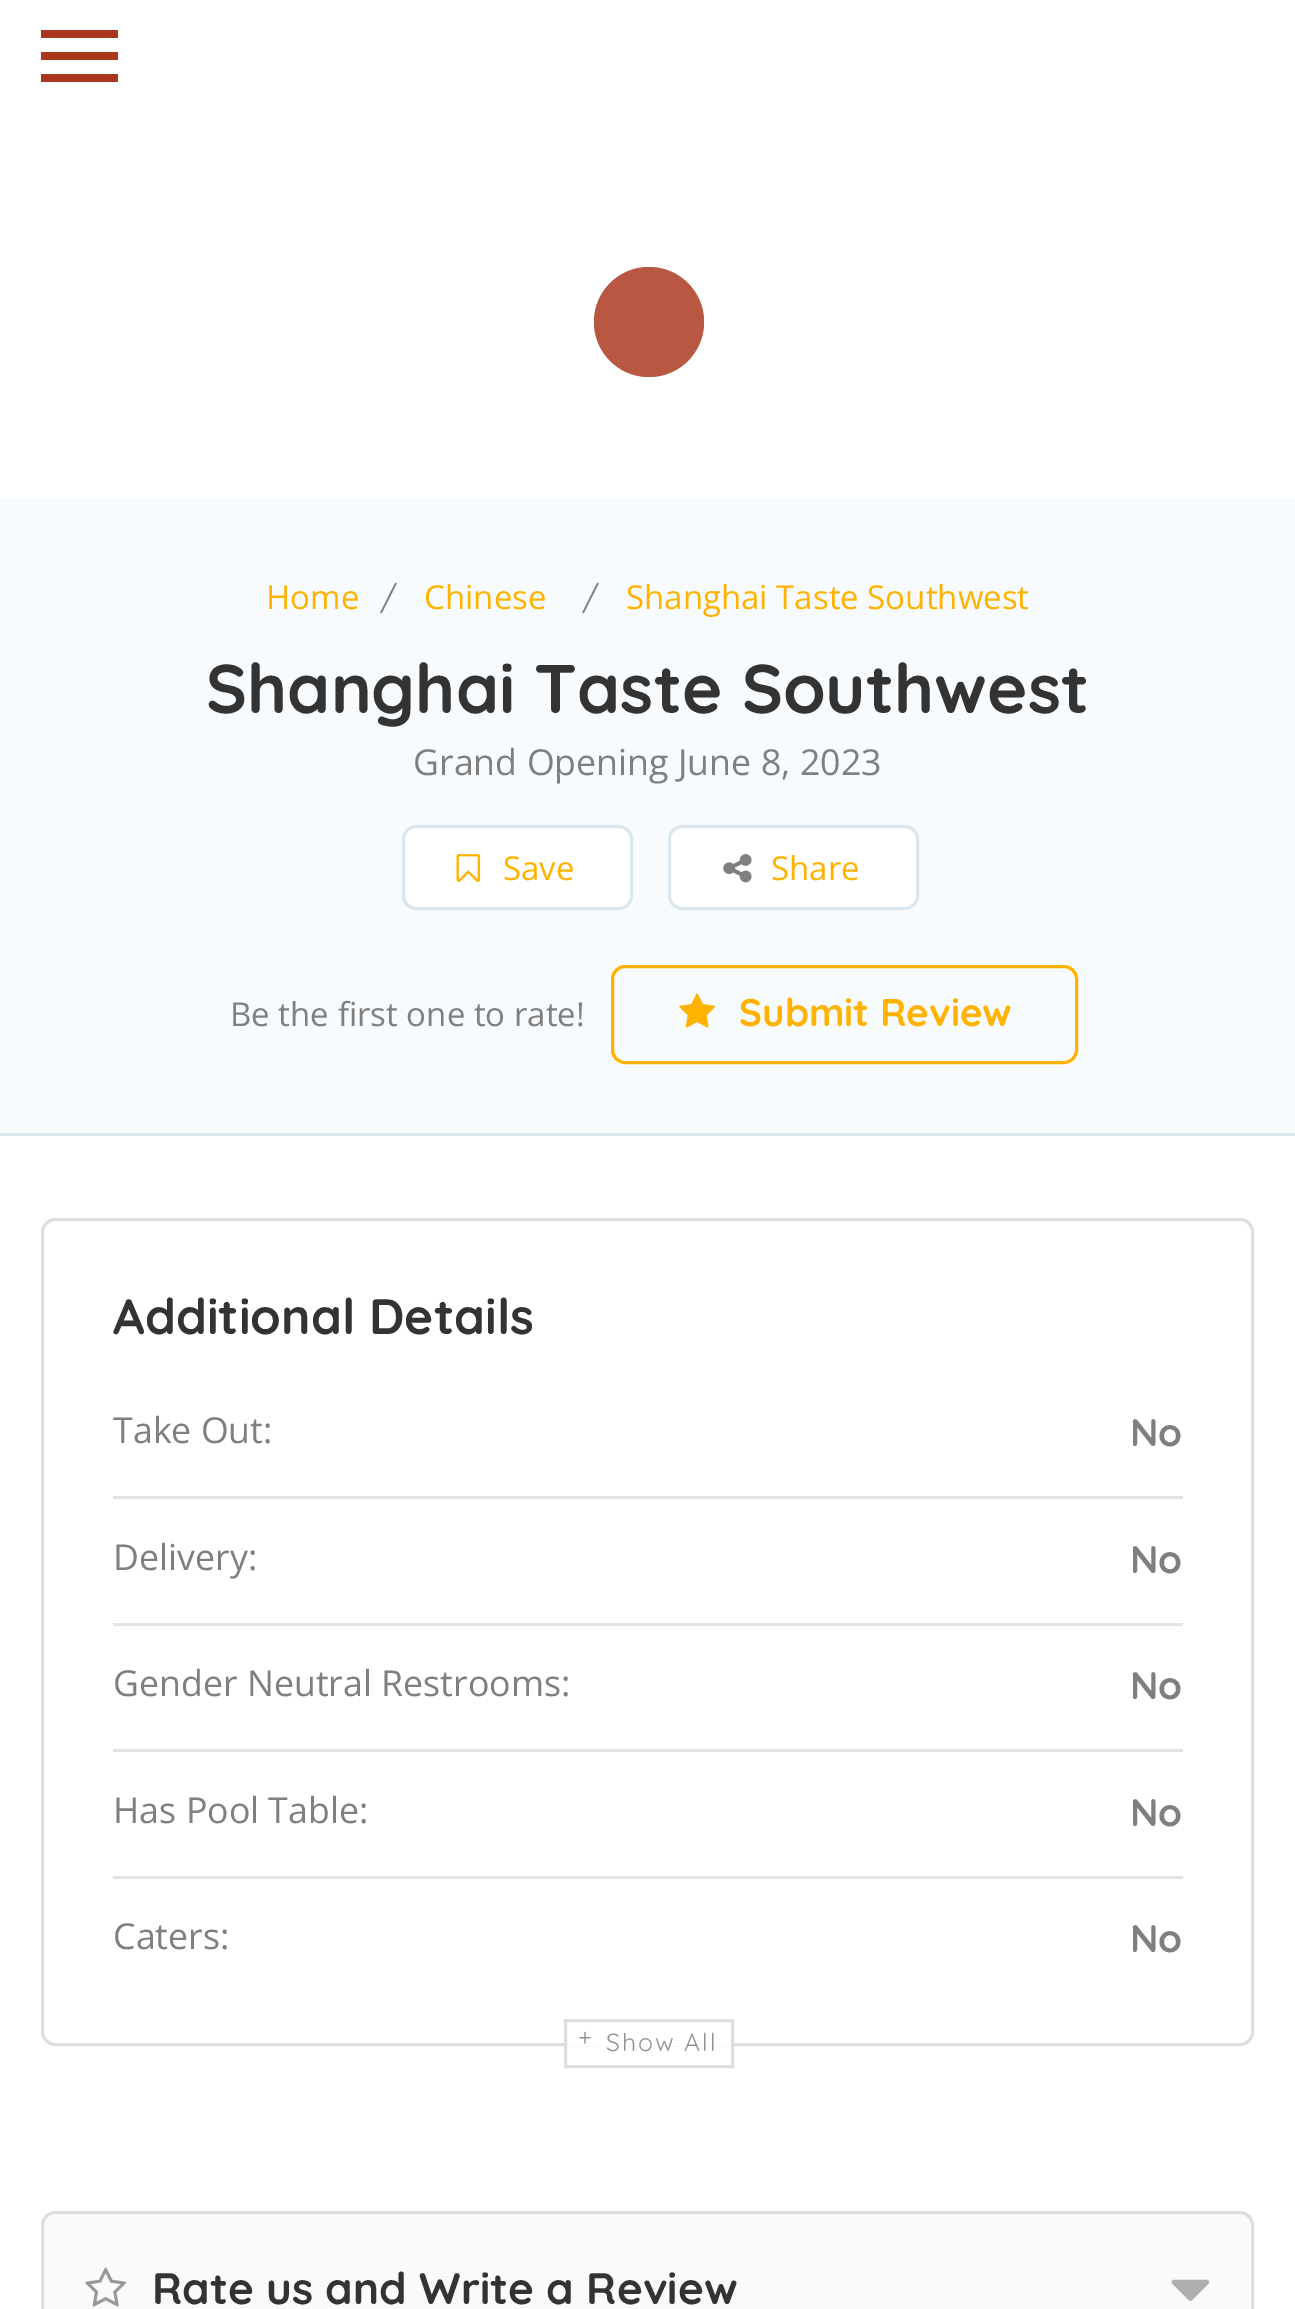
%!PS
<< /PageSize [1295 2309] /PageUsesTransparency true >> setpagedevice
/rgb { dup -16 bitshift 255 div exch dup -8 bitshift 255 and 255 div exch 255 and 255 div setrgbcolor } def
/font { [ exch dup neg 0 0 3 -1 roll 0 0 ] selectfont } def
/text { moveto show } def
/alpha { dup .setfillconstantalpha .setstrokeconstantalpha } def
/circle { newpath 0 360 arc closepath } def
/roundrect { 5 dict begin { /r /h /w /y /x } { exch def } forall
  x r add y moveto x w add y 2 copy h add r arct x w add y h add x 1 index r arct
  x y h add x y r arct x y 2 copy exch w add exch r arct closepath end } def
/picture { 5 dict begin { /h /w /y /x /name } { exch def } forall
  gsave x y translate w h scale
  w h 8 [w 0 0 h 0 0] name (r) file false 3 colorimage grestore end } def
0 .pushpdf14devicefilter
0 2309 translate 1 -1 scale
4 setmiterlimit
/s1 { /OpenSans-Regular 33 font 16#FFB200 rgb } def
/s2 { /Quicksand-Regular 33 font 16#7F7F7F rgb } def
/s3 { /Quicksand-Bold 68.75 font 16#333333 rgb } def
/s4 { /OpenSans-Regular 35.75 font 16#7F7F7F rgb } def
/s5 { /OpenSans-Regular 33 font 16#7F7F7F rgb } def
/s6 { /Quicksand-Bold 38.5 font 16#FFB200 rgb } def
/s7 { /Quicksand-Bold 49.5 font 16#333333 rgb } def
/s8 { /Quicksand-Bold 38.5 font 16#7F7F7F rgb } def
/s9 { /Quicksand-Bold 44 font 16#333333 rgb } def
16#FFFFFF rgb
0 0 1295 2309 rectfill
16#AA381E rgb
41 30 77 8 rectfill
41 52 77 8 rectfill
41 74 77 8 rectfill
16#CC8878 rgb
649 322 55 circle fill
0.6 alpha
16#AA381E rgb
649 322 55 circle fill
1 alpha
16#F7FBFE rgb
0 498 1295 635 rectfill
16#DBE7EF rgb
0 1133 1295 3 rectfill
s1
(Home) 266 609 text
s2
(/) 380 609 text
s1
(Chinese) 424 609 text
s2
(/) 582 609 text
s1
(Shanghai Taste Southwest) 626 609 text
s3
(Shanghai Taste Southwest) 206 713 text
s4
(Grand Opening June 8, 2023) 413 775 text
16#FFFFFF rgb
403.5 826.5 228 82 12.5 roundrect gsave fill grestore
16#DBE7EF rgb
3 setlinewidth
stroke
(pic1.raw) 456 854 25 28 picture
s1
(Save) 503 880 text
16#FFFFFF rgb
669.5 826.5 248 82 12.5 roundrect gsave fill grestore
16#DBE7EF rgb
stroke
(pic2.raw) 723 854 29 29 picture
s1
(Share) 771 880 text
s5
(Be the first one to rate!) 230 1026 text
16#FFB200 rgb
612.5 966.5 464 96 12.5 roundrect stroke
(pic3.raw) 679 993 36 35 picture
s6
(Submit Review) 739 1026 text
16#DEDEDE rgb
42.5 1219.5 1210 825 12.5 roundrect stroke
s7
(Additional Details) 113 1334 text
16#E3E3E3 rgb
113 1496 1070 3 rectfill
s4
(Take Out:) 113 1443 text
s8
(No) 1130 1446 text
16#E3E3E3 rgb
113 1623 1070 3 rectfill
s4
(Delivery:) 113 1570 text
s8
(No) 1130 1573 text
16#E3E3E3 rgb
113 1749 1070 3 rectfill
s4
(Gender Neutral Restrooms:) 113 1696 text
s8
(No) 1130 1699 text
16#E3E3E3 rgb
113 1876 1070 3 rectfill
s4
(Has Pool Table:) 113 1823 text
s8
(No) 1130 1826 text
s4
(Caters:) 113 1949 text
s8
(No) 1130 1952 text
16#FFFFFF rgb
567 2043 164 3 rectfill
16#DEDEDE rgb
565.5 2020.5 167 46 rectstroke
/Quicksand-Regular 24.75 font
16#939393 rgb
578 2046 moveto 2 0 (+) ashow
606 2051 moveto 2 0 (Show All) ashow
16#FAFAFA rgb
42.5 2212.5 1210 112 12.5 roundrect gsave fill grestore
16#DEDEDE rgb
stroke
(pic4.raw) 85 2267 41 40 picture
s9
(Rate us and Write a Review) 152 2304 text
(pic5.raw) 1171 2279 39 22 picture
.poppdf14devicefilter showpage
